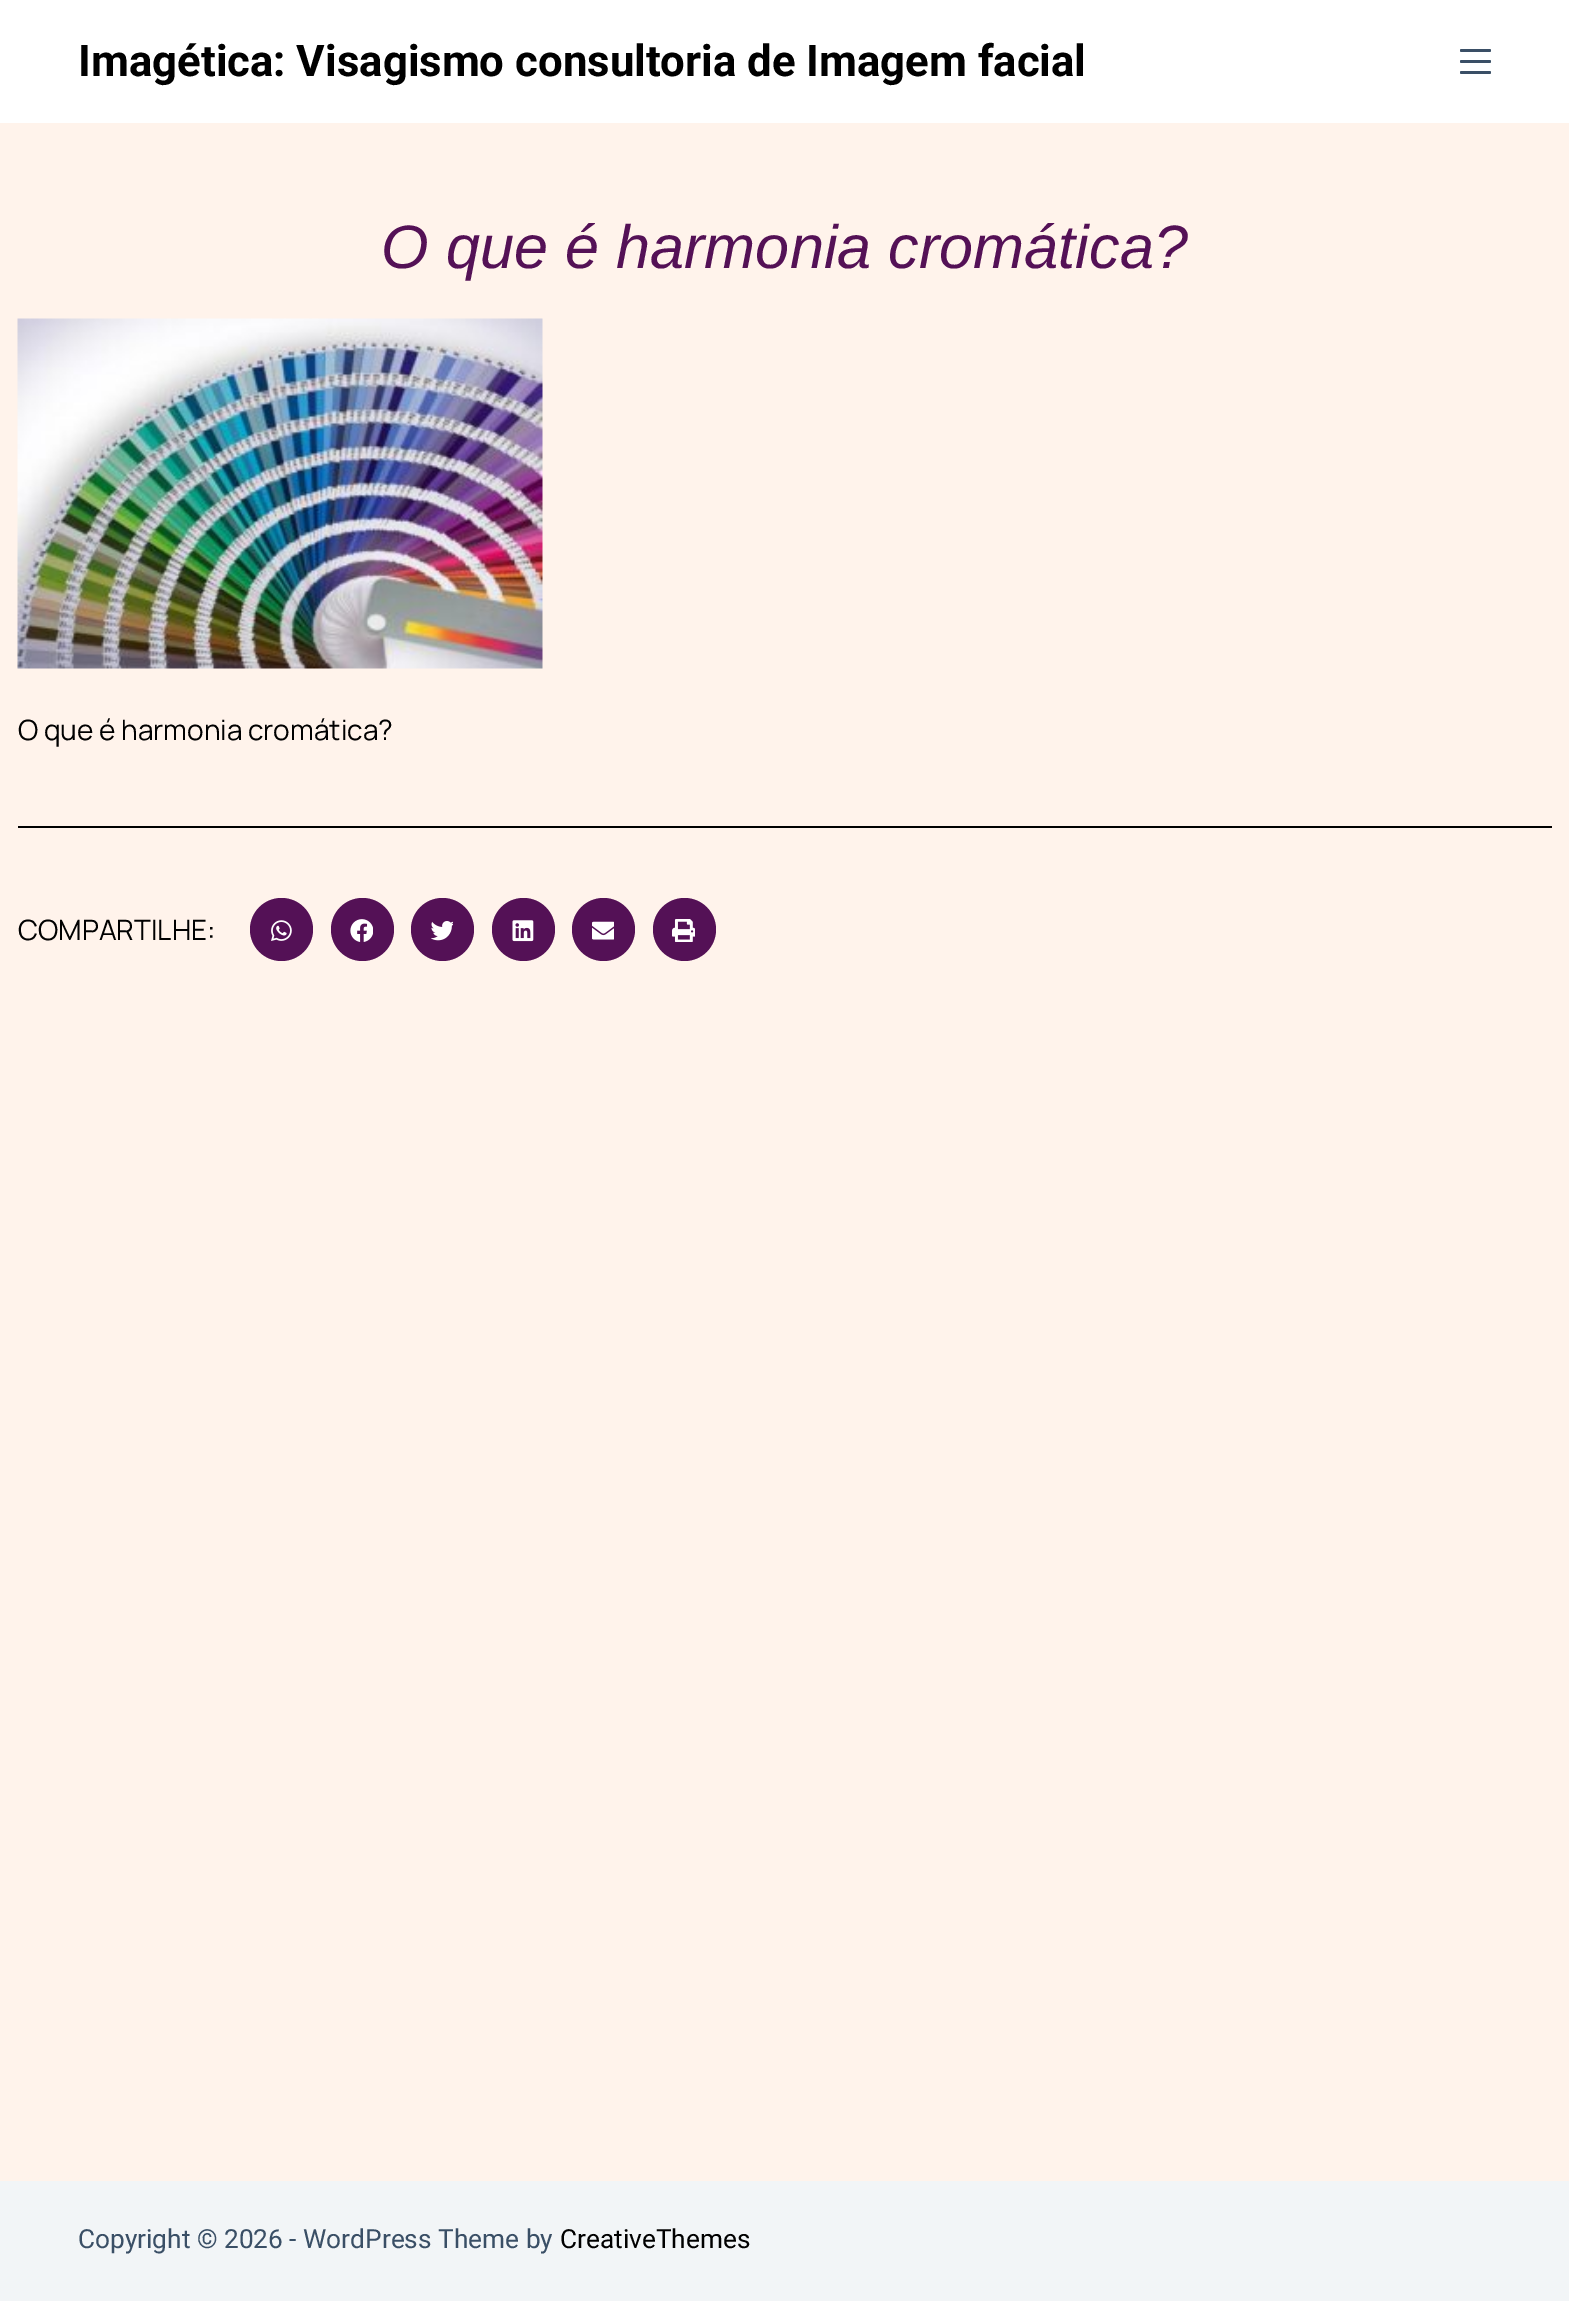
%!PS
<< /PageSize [1569 2301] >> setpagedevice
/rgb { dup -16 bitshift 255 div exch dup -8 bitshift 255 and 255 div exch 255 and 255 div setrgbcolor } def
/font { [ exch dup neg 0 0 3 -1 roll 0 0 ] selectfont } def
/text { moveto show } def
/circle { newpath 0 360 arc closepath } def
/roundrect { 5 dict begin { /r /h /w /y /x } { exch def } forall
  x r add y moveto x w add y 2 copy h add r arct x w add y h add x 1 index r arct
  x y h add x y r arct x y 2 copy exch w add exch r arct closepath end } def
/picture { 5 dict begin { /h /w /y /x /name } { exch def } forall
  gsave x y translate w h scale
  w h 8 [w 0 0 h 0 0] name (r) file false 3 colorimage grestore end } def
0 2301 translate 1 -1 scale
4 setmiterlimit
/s1 { /Roboto-Bold 43.75 font 16#000000 rgb } def
/s2 { /LiberationSans-Italic 61.25 font 16#541156 rgb } def
/s3 { /Manrope-Regular 28 font 16#000000 rgb } def
/s4 { /Roboto-Regular 26.25 font 16#3A4F66 rgb } def
/s5 { /Roboto-Regular 26.25 font 16#000000 rgb } def
16#FFF3EB rgb
0 0 1569 2301 rectfill
16#FFFFFF rgb
0 0 1569 123 rectfill
s1
(Imagética: Visagismo consultoria de Imagem facial) 78 76 text
16#3A4F66 rgb
1460 49 31 3 1.5 roundrect fill
1460 60 31 3 1.5 roundrect fill
1460 71 31 3 1.5 roundrect fill
s2
(O que é harmonia cromática?) 381 268 text
(pic1.raw) 17 318 526 351 picture
s3
(O que é harmonia cromática?) 18 740 text
18 826 1534 2 rectfill
(COMPARTILHE:) 18 940 text
16#541156 rgb
281.5 929.5 31.5 circle fill
(pic2.raw) 271 920 21 21 picture
362.5 929.5 31.5 circle fill
(pic3.raw) 350 919 23 23 picture
442.5 929.5 31.5 circle fill
(pic4.raw) 431 921 22 20 picture
523.5 929.5 31.5 circle fill
(pic5.raw) 512 920 22 22 picture
603.5 929.5 31.5 circle fill
(pic6.raw) 592 921 22 19 picture
684.5 929.5 31.5 circle fill
(pic7.raw) 672 919 23 23 picture
16#F2F5F7 rgb
0 2181 1569 120 rectfill
s4
(Copyright © 2026 - WordPress Theme by) 78 2248 text
s5
(CreativeThemes) 560 2248 text
showpage
